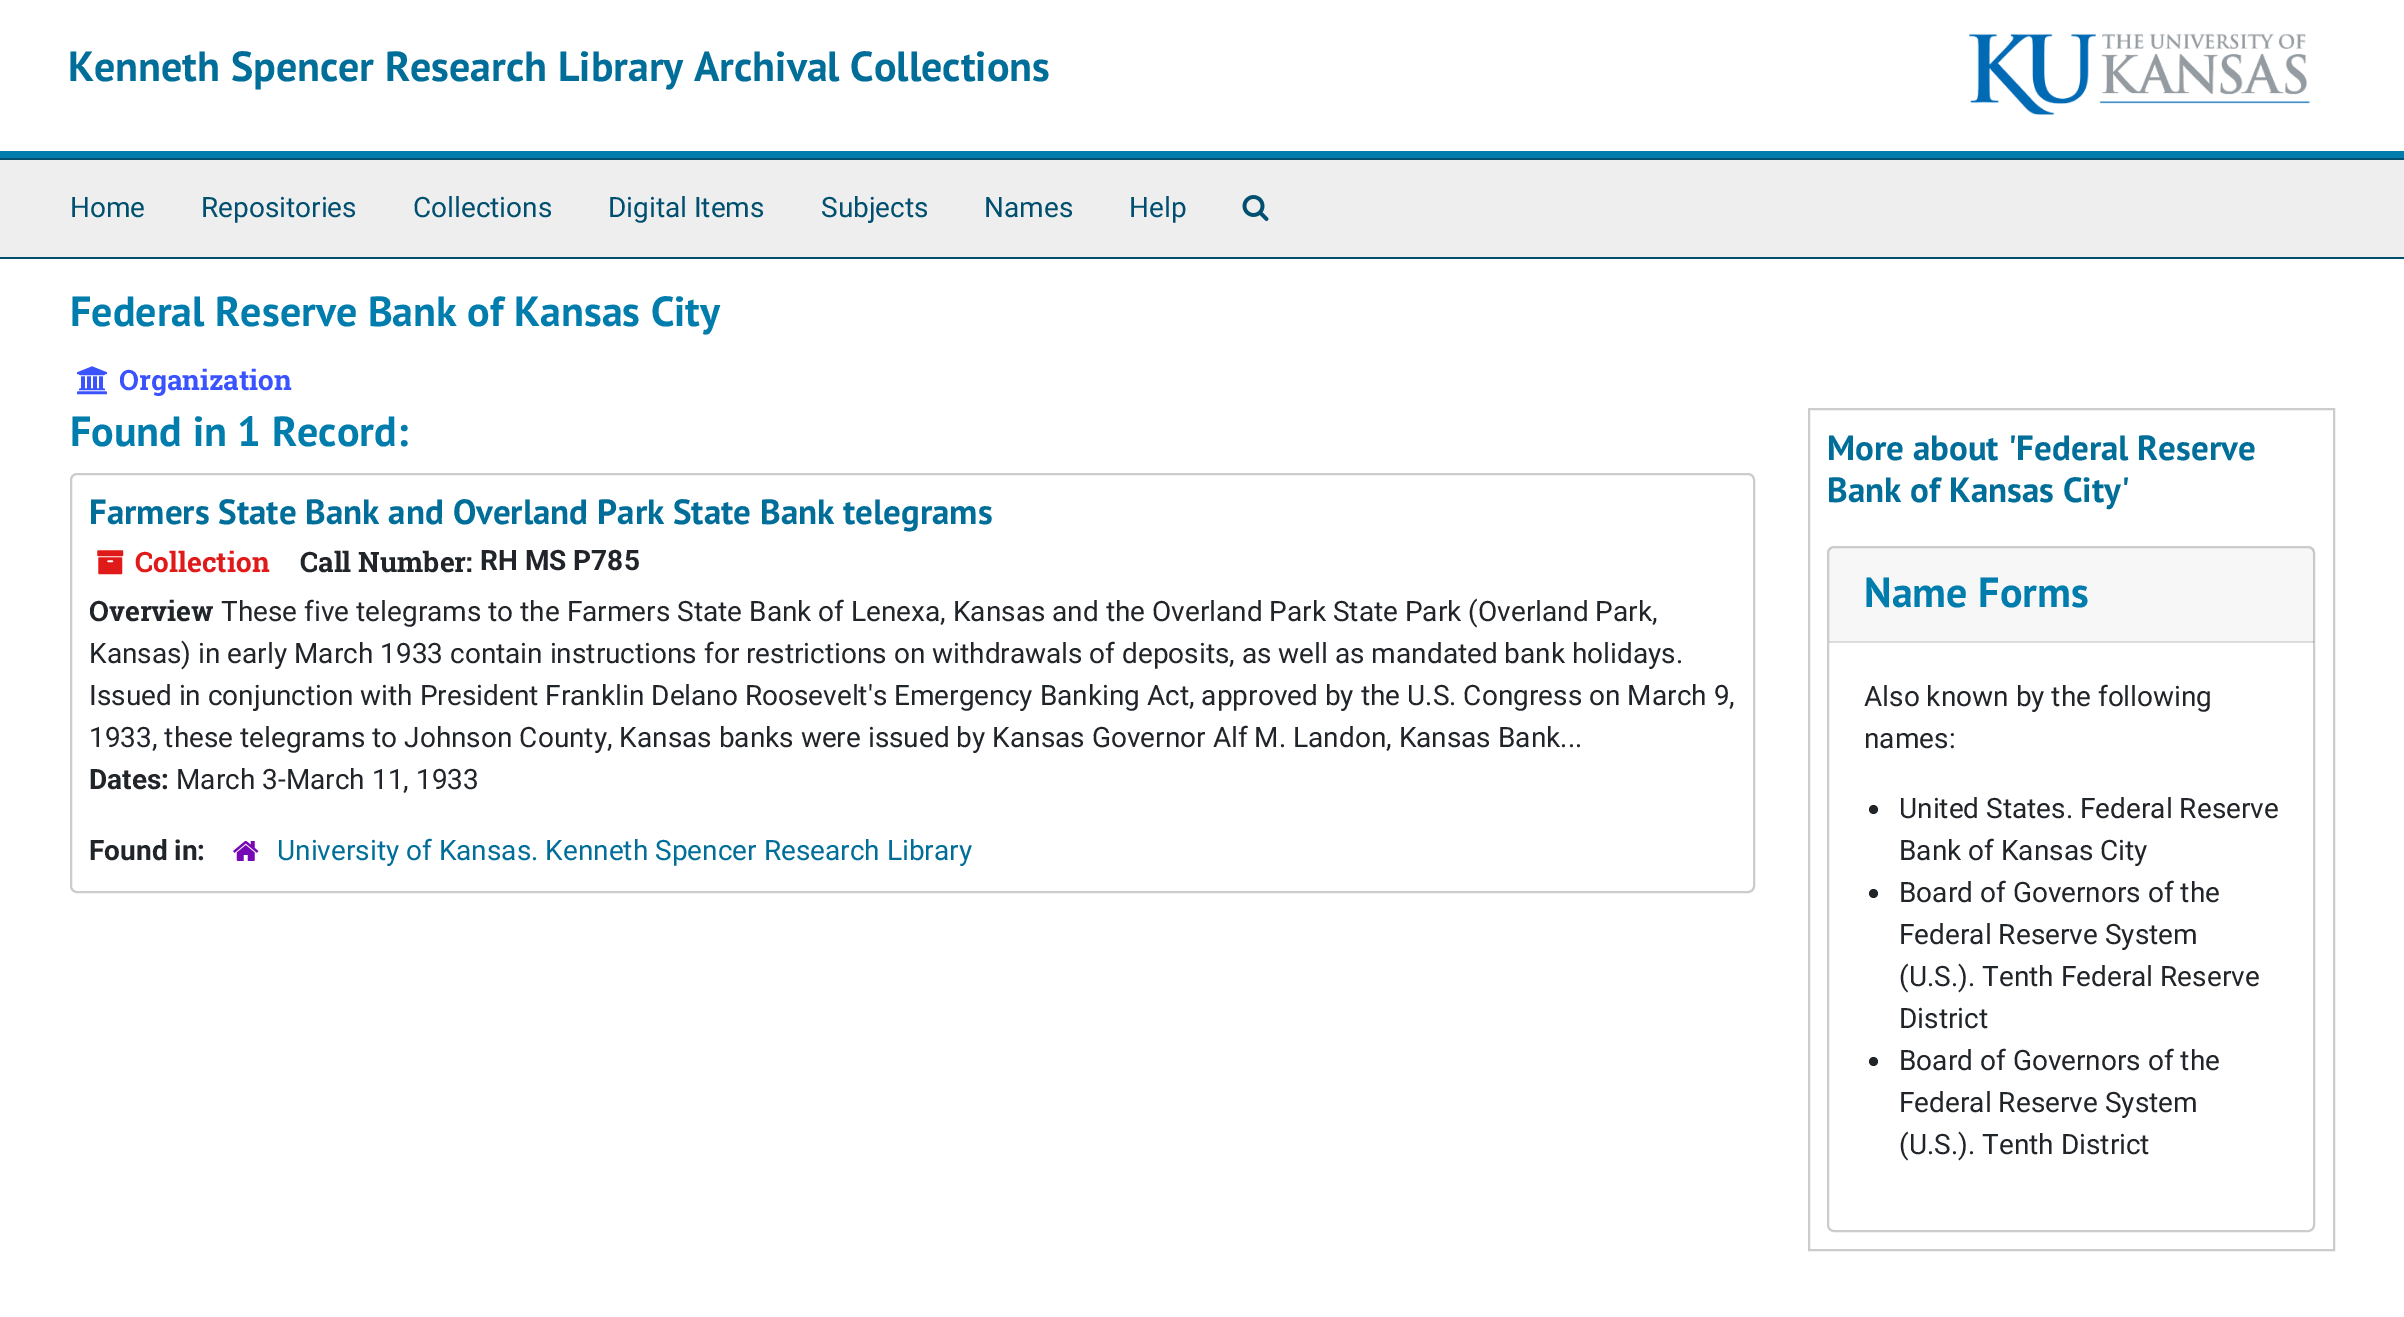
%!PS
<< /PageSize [2404 1317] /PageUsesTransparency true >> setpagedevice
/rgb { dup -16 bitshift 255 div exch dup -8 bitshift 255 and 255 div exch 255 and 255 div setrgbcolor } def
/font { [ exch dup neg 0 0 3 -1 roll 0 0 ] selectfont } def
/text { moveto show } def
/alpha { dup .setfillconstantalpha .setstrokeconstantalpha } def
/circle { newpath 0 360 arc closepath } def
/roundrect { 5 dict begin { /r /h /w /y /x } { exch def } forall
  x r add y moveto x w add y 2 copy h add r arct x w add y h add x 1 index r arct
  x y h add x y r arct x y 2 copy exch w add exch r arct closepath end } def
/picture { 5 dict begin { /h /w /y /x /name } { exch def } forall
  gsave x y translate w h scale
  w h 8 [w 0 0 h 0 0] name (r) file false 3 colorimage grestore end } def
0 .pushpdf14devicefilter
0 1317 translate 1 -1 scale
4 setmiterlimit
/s1 { /PTSans-Bold 42 font 16#006E99 rgb } def
/s2 { /Roboto-Regular 28 font 16#004F6F rgb } def
/s3 { /PTSans-Bold 42 font 16#007CAD rgb } def
/s4 { /RobotoSlab-Bold 28 font 16#3B52FF rgb } def
/s5 { /PTSans-Bold 35 font 16#006E99 rgb } def
/s6 { /RobotoSlab-Bold 28 font 16#E01919 rgb } def
/s7 { /RobotoSlab-Bold 28 font 16#212529 rgb } def
/s8 { /Roboto-Bold 28 font 16#212529 rgb } def
/s9 { /Roboto-Regular 28 font 16#212529 rgb } def
/s10 { /Roboto-Regular 28 font 16#006E99 rgb } def
16#FFFFFF rgb
0 0 2404 1317 rectfill
16#007CAD rgb
0 151 2404 7 rectfill
s1
(Kenneth Spencer Research Library Archival Collections) 68 81 text
(pic1.raw) 1969 33 341 82 picture
16#EEEEEE rgb
0 160 2404 97 rectfill
16#004F6F rgb
0 158 2404 2 rectfill
0 257 2404 2 rectfill
s2
(Home) 70 217 text
(Repositories) 201 217 text
(Collections) 413 217 text
(Digital Items) 608 217 text
(Subjects) 821 217 text
(Names) 984 217 text
(Help) 1129 217 text
(pic2.raw) 1242 195 27 26 picture
s3
(Federal Reserve Bank of Kansas City) 70 326 text
(pic3.raw) 77 366 30 29 picture
s4
(Organization) 119 390 text
s3
(Found in 1 Record:) 70 446 text
16#CCCCCC rgb
2 setlinewidth
71 474 1683 418 6 roundrect stroke
s5
(Farmers State Bank and Overland Park State Bank telegrams) 89 524 text
(pic4.raw) 97 550 27 25 picture
s6
(Collection) 135 572 text
s7
(Call Number:) 300 572 text
s8
(RH MS P785) 480 570 text
s7
(Overview) 89 621 text
s9
(These five telegrams to the Farmers State Bank of Lenexa, Kansas and the Overland Park State Park \(Overland Park,) 221 621 text
(Kansas\) in early March 1933 contain instructions for restrictions on withdrawals of deposits, as well as mandated bank holidays.) 89 663 text
(Issued in conjunction with President Franklin Delano Roosevelt's Emergency Banking Act, approved by the U.S. Congress on March 9,) 89 705 text
(1933, these telegrams to Johnson County, Kansas banks were issued by Kansas Governor Alf M. Landon, Kansas Bank...) 89 747 text
s8
(Dates:) 89 789 text
s9
(March 3-March 11, 1933) 176 789 text
s8
(Found in:) 89 860 text
(pic5.raw) 233 841 26 20 picture
s10
(University of Kansas. Kenneth Spencer Research Library) 277 860 text
16#CCCCCC rgb
1809 409 525 841 rectstroke
s5
(More about 'Federal Reserve) 1827 460 text
(Bank of Kansas City') 1827 502 text
16#CCCCCC rgb
1828 547 486 684 6 roundrect stroke
0.03 alpha
16#000000 rgb
1829 548 485 94 rectfill
0.12 alpha
1829 641 485 2 rectfill
1 alpha
s3
(Name Forms) 1864 607 text
s9
(Also known by the following) 1864 706 text
(names:) 1864 748 text
1873.5 809.5 4.5 circle fill
(United States. Federal Reserve) 1899 818 text
(Bank of Kansas City) 1899 860 text
1873.5 893.5 4.5 circle fill
(Board of Governors of the) 1899 902 text
(Federal Reserve System) 1899 944 text
(\(U.S.\). Tenth Federal Reserve) 1899 986 text
(District) 1899 1028 text
1873.5 1061.5 4.5 circle fill
(Board of Governors of the) 1899 1070 text
(Federal Reserve System) 1899 1112 text
(\(U.S.\). Tenth District) 1899 1154 text
.poppdf14devicefilter showpage
